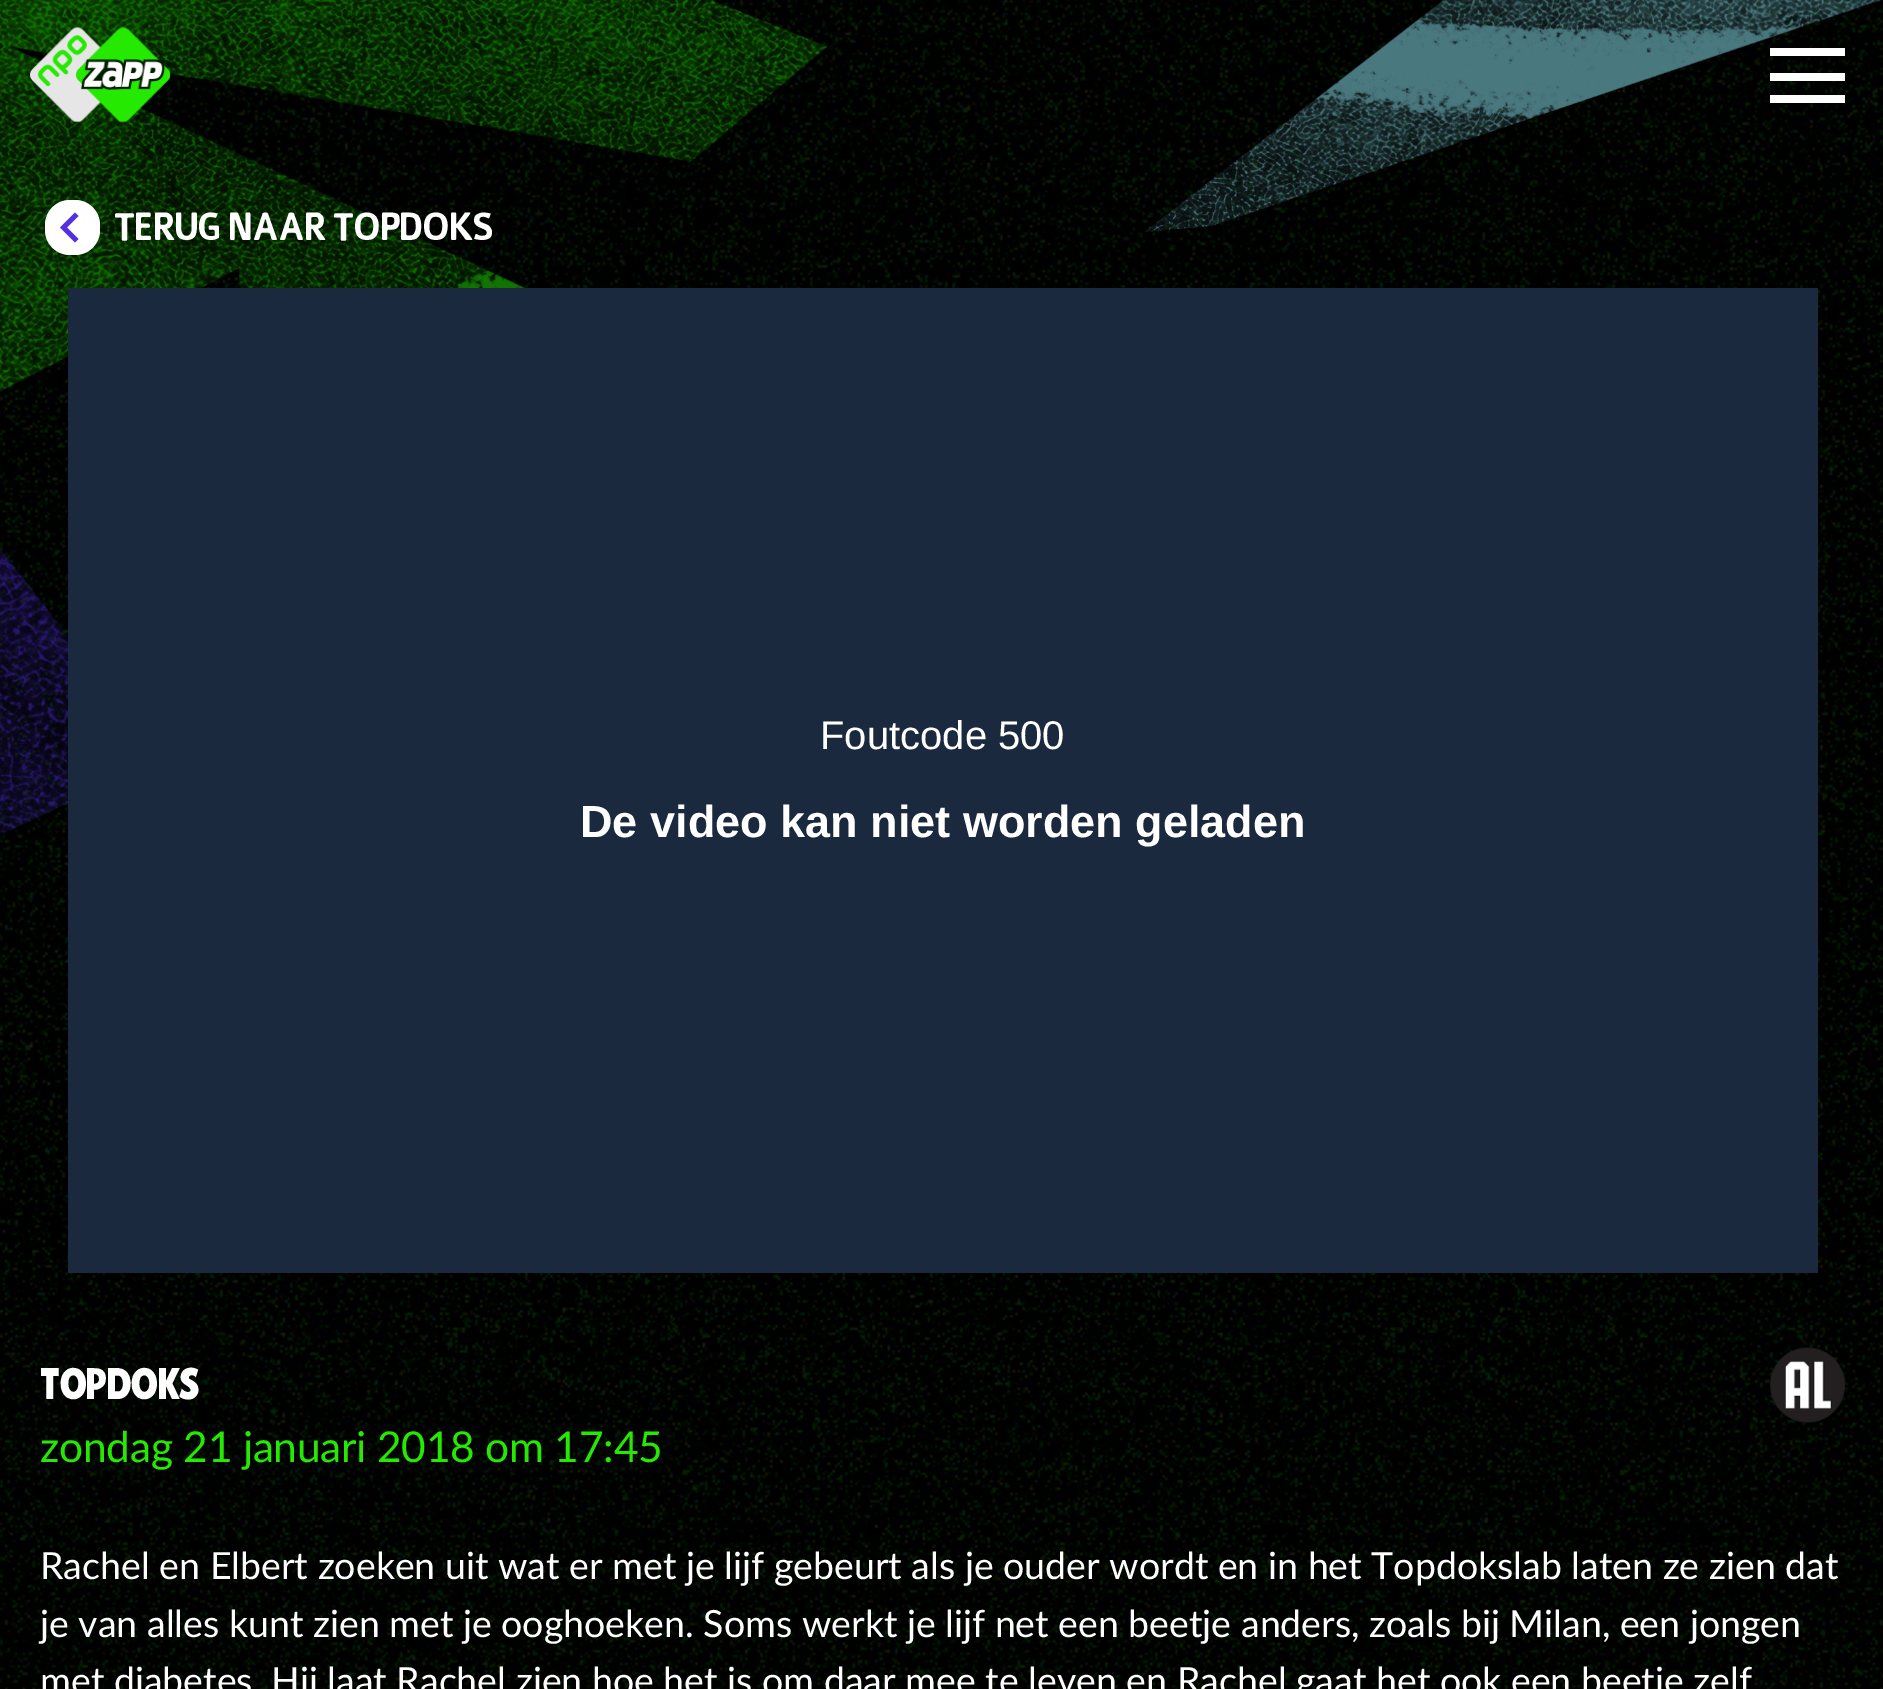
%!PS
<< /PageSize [1883 1689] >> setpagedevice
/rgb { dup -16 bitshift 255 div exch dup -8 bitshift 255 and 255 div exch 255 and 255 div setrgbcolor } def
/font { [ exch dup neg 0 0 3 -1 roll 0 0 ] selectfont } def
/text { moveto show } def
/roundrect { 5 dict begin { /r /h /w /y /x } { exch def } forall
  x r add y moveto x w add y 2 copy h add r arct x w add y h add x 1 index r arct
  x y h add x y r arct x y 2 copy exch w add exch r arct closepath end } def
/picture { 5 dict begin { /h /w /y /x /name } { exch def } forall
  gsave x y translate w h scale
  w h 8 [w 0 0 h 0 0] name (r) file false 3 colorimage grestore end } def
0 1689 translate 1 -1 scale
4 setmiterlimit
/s1 { /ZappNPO-Regular 37.5 font 16#FFFFFF rgb } def
/s2 { /LiberationSans-Regular 40 font 16#FFFFFF rgb } def
/s3 { /LiberationSans-Bold 45 font 16#FFFFFF rgb } def
/s4 { /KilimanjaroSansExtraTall-Regular 42.5 font 16#FFFFFF rgb } def
/s5 { /Lato-Regular 37.5 font 16#FFFFFF rgb } def
16#FFFFFF rgb
0 0 1883 1689 rectfill
(pic1.raw) 0 0 1883 1689 picture
(pic2.raw) 0 0 1882 835 picture
(pic3.raw) 30 27 140 96 picture
1770 48 75 8 rectfill
1770 95 75 8 rectfill
1770 73 75 8 rectfill
45 200 55 55 25 roundrect fill
16#5331DF rgb
78.5 216 moveto 75 212.5 lineto 60 227.5 lineto 75 242.5 lineto 78.5 239 lineto 67 227.5 lineto closepath fill
s1
(TERUG NAAR TOPDOKS) 115 240 text
16#1B293F rgb
68 288 1750 985 rectfill
s2
(Foutcode 500) 820 749 text
s3
(De video kan niet worden geladen) 580 837 text
s4
(TOPDOKS) 40 1399 text
(pic4.raw) 1770 1347 75 76 picture
/Lato-Regular 42.5 font
16#25E900 rgb
40 1462 moveto -0.25 0 (zondag 21 januari 2018 om 17:45) ashow
s5
(Rachel en Elbert zoeken uit wat er met je lijf gebeurt als je ouder wordt en in het Topdokslab laten ze zien dat) 40 1579 text
(je van alles kunt zien met je ooghoeken. Soms werkt je lijf net een beetje anders, zoals bij Milan, een jongen) 40 1637 text
(met diabetes. Hij laat Rachel zien hoe het is om daar mee te leven en Rachel gaat het ook een beetje zelf) 40 1694 text
showpage
